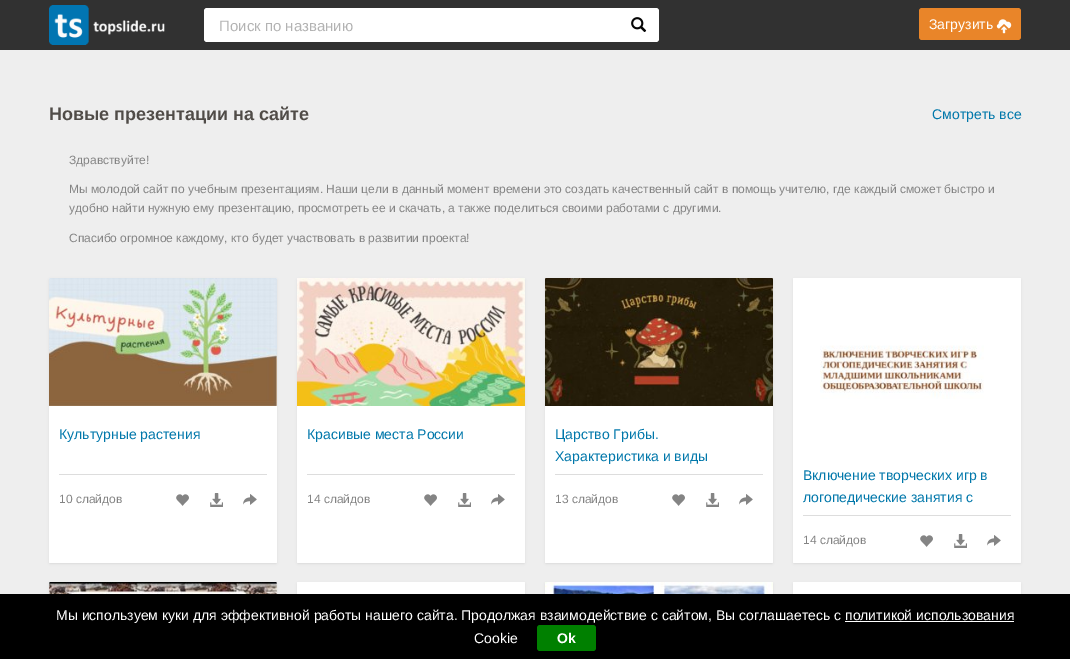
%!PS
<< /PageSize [1070 659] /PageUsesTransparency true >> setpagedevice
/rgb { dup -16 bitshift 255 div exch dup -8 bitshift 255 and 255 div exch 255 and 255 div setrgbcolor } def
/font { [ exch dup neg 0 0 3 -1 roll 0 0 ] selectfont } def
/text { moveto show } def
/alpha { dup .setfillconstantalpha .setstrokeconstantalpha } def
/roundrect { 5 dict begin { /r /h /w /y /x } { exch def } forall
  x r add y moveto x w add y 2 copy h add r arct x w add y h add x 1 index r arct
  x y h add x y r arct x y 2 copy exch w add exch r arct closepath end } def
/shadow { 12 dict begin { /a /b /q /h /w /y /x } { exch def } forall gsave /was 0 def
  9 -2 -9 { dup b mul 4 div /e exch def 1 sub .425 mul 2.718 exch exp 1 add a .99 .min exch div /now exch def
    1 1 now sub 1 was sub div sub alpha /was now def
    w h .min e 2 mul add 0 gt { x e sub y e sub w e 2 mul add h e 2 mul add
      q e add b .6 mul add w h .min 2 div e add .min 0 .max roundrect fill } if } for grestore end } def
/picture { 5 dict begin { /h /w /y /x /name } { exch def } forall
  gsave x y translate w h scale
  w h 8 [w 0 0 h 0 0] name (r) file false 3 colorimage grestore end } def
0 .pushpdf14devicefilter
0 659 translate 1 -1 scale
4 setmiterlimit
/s1 { /LiberationSans-Regular 15 font 16#B3B3B3 rgb } def
/s2 { /LiberationSans-Regular 14 font 16#FFFFFF rgb } def
/s3 { /LiberationSans-Bold 18 font 16#504C48 rgb } def
/s4 { /LiberationSans-Regular 14 font 16#0077AA rgb } def
/s5 { /LiberationSans-Regular 12 font 16#848484 rgb } def
/s6 { /LiberationSans-Bold 14 font 16#FFFFFF rgb } def
16#EEEEEE rgb
0 0 1070 659 rectfill
16#313131 rgb
0 0 1070 50 rectfill
(pic1.raw) 49 5 116 40 picture
16#FFFFFF rgb
204 8 455 34 3 roundrect fill
s1
(Поиск по названию) 219 31 text
(pic2.raw) 631 17 16 15 picture
16#E98529 rgb
919 8 102 32 3 roundrect fill
s2
(Загрузить) 929 29 text
(pic3.raw) 996 19 16 15 picture
s3
(Новые презентации на сайте) 49 120 text
s4
(Смотреть все) 932 119 text
s5
(Здравствуйте!) 69 164 text
(Мы молодой сайт по учебным презентациям. Наши цели в данный момент времени это создать качественный сайт в помощь учителю, где каждый сможет быстро и) 69 193 text
(удобно найти нужную ему презентацию, просмотреть ее и скачать, а также поделиться своими работами с другими.) 69 212 text
(Спасибо огромное каждому, кто будет участвовать в развитии проекта!) 69 242 text
16#CCCCCC rgb
50 280 226 283 0 1.5 1 shadow
16#FFFFFF rgb
49 278 228 285 1 roundrect fill
(pic4.raw) 49 278 228 128 picture
s4
(Культурные растения) 59 439 text
16#DDDDDD rgb
59 474 208 1 rectfill
s5
(10 слайдов) 59 503 text
(pic5.raw) 176 494 13 12 picture
(pic6.raw) 210 493 13 14 picture
(pic7.raw) 243 494 14 11 picture
16#CCCCCC rgb
298 280 226 283 0 1.5 1 shadow
16#FFFFFF rgb
297 278 228 285 1 roundrect fill
(pic8.raw) 297 278 228 128 picture
s4
(Красивые места России) 307 439 text
16#DDDDDD rgb
307 474 208 1 rectfill
s5
(14 слайдов) 307 503 text
(pic5.raw) 424 494 13 12 picture
(pic6.raw) 458 493 13 14 picture
(pic7.raw) 491 494 14 11 picture
16#CCCCCC rgb
546 280 226 283 0 1.5 1 shadow
16#FFFFFF rgb
545 278 228 285 1 roundrect fill
(pic9.raw) 545 278 228 128 picture
s4
(Царство Грибы.) 555 439 text
(Характеристика и виды) 555 461 text
16#DDDDDD rgb
555 474 208 1 rectfill
s5
(13 слайдов) 555 503 text
(pic5.raw) 672 494 13 12 picture
(pic6.raw) 706 493 13 14 picture
(pic7.raw) 739 494 14 11 picture
16#CCCCCC rgb
794 280 226 283 0 1.5 1 shadow
16#FFFFFF rgb
793 278 228 285 1 roundrect fill
(pic10.raw) 820 345 164 54 picture
s4
(Включение творческих игр в) 803 480 text
(логопедические занятия с) 803 502 text
16#DDDDDD rgb
803 515 208 1 rectfill
s5
(14 слайдов) 803 544 text
(pic5.raw) 920 535 13 12 picture
(pic6.raw) 954 534 13 14 picture
(pic7.raw) 987 535 14 11 picture
16#CCCCCC rgb
50 584 226 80 0 1.5 1 shadow
(pic11.raw) 49 582 228 12 picture
298 584 226 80 0 1.5 1 shadow
16#FFFFFF rgb
297 582 228 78 1 roundrect fill
16#CCCCCC rgb
546 584 226 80 0 1.5 1 shadow
(pic12.raw) 545 582 228 12 picture
794 584 226 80 0 1.5 1 shadow
16#FFFFFF rgb
793 582 228 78 1 roundrect fill
16#000000 rgb
0 594 1070 65 rectfill
s2
(Мы используем куки для эффективной работы нашего сайта. Продолжая взаимодействие с сайтом, Вы соглашаетесь с политикой использования) 56 620 text
845 621 169 1 rectfill
(Cookie) 474 643 text
16#008000 rgb
537 625 59 26 3 roundrect fill
s6
(Ok) 557 643 text
.poppdf14devicefilter showpage
